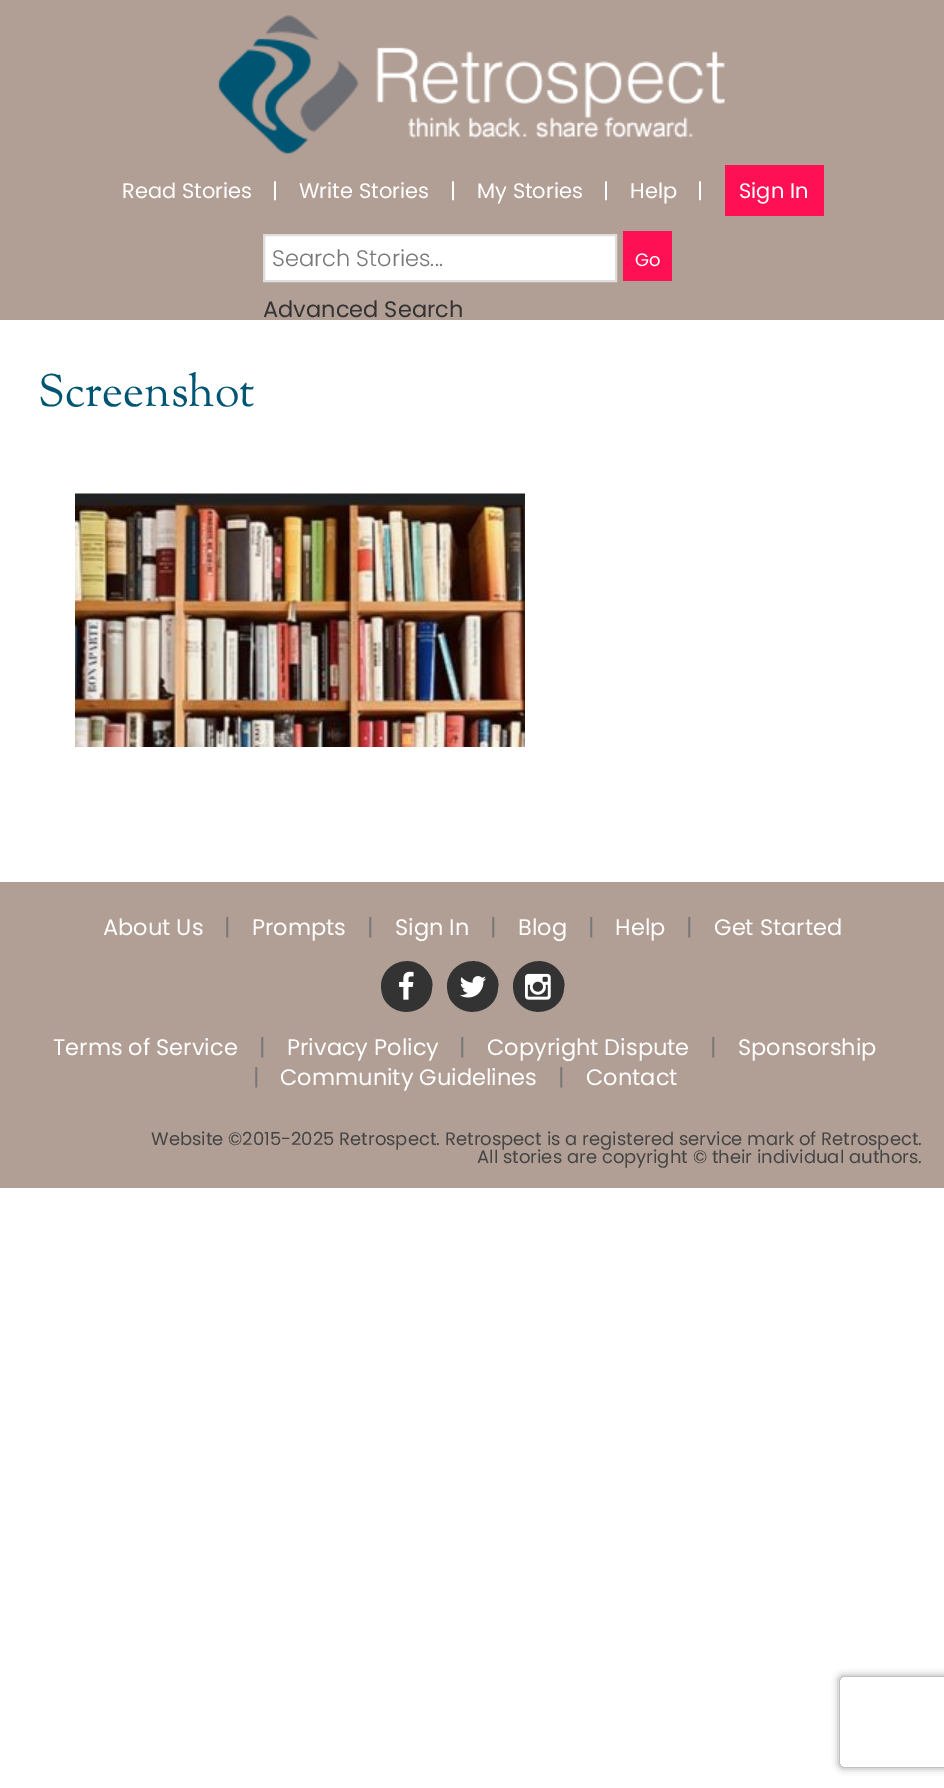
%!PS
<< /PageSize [944 1788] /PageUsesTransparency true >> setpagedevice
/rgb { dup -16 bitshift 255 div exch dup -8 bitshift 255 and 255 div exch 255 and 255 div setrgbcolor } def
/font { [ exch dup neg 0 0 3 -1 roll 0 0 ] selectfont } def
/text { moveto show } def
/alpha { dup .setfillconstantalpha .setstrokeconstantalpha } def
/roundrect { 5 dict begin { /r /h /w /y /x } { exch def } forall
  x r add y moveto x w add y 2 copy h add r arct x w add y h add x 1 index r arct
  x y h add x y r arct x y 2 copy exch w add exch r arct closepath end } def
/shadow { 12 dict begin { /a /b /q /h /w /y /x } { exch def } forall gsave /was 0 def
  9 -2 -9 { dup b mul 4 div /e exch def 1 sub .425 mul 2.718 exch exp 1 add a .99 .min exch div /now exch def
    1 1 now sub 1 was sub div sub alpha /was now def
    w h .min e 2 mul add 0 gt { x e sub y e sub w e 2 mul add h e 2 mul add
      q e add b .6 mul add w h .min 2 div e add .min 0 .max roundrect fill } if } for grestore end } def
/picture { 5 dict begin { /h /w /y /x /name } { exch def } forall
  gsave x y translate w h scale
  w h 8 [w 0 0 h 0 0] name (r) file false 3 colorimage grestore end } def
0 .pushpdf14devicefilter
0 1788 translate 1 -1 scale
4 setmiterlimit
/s1 { /Poppins-Regular 21 font 16#FFFFFF rgb } def
/s2 { /Poppins-Light 22.5 font 16#777777 rgb } def
/s3 { /Poppins-Regular 18 font 16#FFFFFF rgb } def
/s4 { /Poppins-Regular 22.5 font 16#333333 rgb } def
/s5 { /SortsMillGoudy-Regular 45 font 16#005672 rgb } def
/s6 { /Poppins-Regular 22.5 font 16#FFFFFF rgb } def
/s7 { /Poppins-Regular 22.5 font 16#777777 rgb } def
/s8 { /Poppins-Regular 18 font 16#444444 rgb } def
16#FFFFFF rgb
0 0 944 1788 rectfill
16#B19E95 rgb
0 0 944 320 rectfill
(pic1.raw) 218 15 507 140 picture
s1
(Read Stories) 122 198 text
(|) 272 198 text
(Write Stories) 299 198 text
(|) 450 198 text
(My Stories) 477 198 text
(|) 603 198 text
(Help) 630 198 text
(|) 697 198 text
16#FF0F54 rgb
725 165 99 51 rectfill
s1
(Sign In) 739 198 text
264 235 moveto 616 235 lineto 616 281 lineto 264 281 lineto closepath gsave fill grestore
16#DDDDDD rgb
2 setlinewidth
stroke
s2
(Search Stories...) 272 266 text
16#FF0F54 rgb
623 231 49 50 rectfill
s3
(Go) 635 266 text
s4
(Advanced Search) 263 317 text
s5
(Screenshot) 38 406 text
(pic2.raw) 75 493 450 254 picture
16#B19E95 rgb
0 882 944 306 rectfill
s6
(About Us) 103 935 text
s7
(|) 224 935 text
s6
(Prompts) 252 935 text
s7
(|) 367 935 text
s6
(Sign In) 395 935 text
s7
(|) 490 935 text
s6
(Blog) 518 935 text
s7
(|) 588 935 text
s6
(Help) 615 935 text
s7
(|) 686 935 text
s6
(Get Started) 714 935 text
16#333333 rgb
429 974 moveto 432 978 433 983 432 988 curveto 431 1013 397 1021 384 999 curveto 382 995 381 990 381 985 curveto 383 960 416 952 429 974 curveto closepath fill
(pic3.raw) 399 971 15 29 picture
495 974 moveto 498 978 499 983 498 988 curveto 497 1013 463 1021 450 999 curveto 448 995 447 990 447 985 curveto 449 960 482 952 495 974 curveto closepath fill
(pic4.raw) 460 976 26 22 picture
561 974 moveto 564 978 565 983 564 988 curveto 563 1013 529 1021 516 999 curveto 514 995 513 990 513 985 curveto 515 960 548 952 561 974 curveto closepath fill
(pic5.raw) 525 973 26 27 picture
s6
(Terms of Service) 53 1055 text
s7
(|) 259 1055 text
s6
(Privacy Policy) 287 1055 text
s7
(|) 459 1055 text
s6
(Copyright Dispute) 487 1055 text
s7
(|) 710 1055 text
s6
(Sponsorship) 738 1055 text
s7
(|) 253 1085 text
s6
(Community Guidelines) 280 1085 text
s7
(|) 558 1085 text
s6
(Contact) 586 1085 text
s8
(Website ©2015-2025 Retrospect. Retrospect is a registered service mark of Retrospect.) 151 1145 text
(All stories are copyright © their individual authors.) 477 1163 text
gsave
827 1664 moveto 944 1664 lineto 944 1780 lineto 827 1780 lineto closepath 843 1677 moveto 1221 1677 lineto 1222.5 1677 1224 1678.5 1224 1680 curveto 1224 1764 lineto 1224 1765.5 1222.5 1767 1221 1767 curveto 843 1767 lineto 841.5 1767 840 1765.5 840 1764 curveto 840 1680 lineto 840 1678.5 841.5 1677 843 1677 curveto closepath eoclip newpath
16#808080 rgb
840 1677 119 90 3 4 1 shadow
grestore
.poppdf14devicefilter showpage
